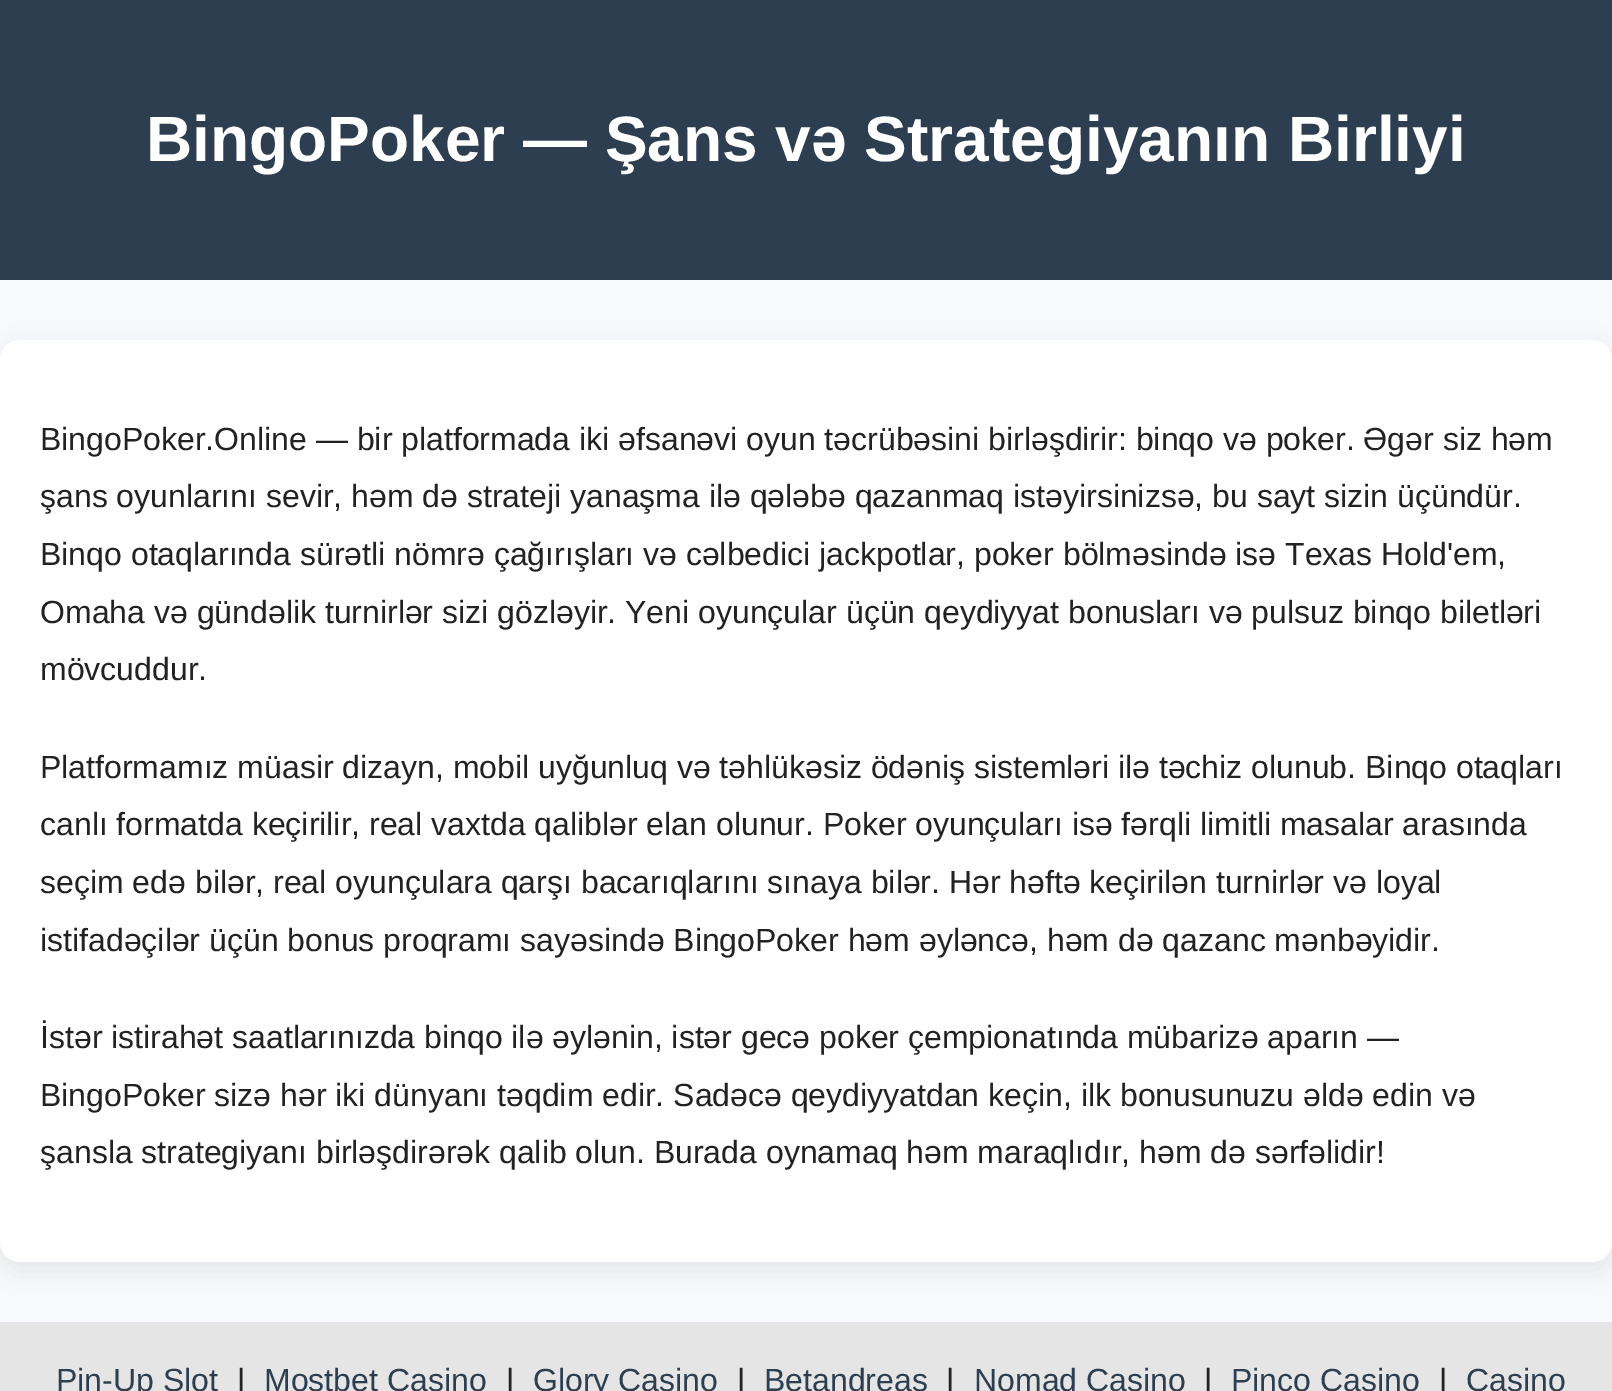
%!PS
<< /PageSize [1612 1391] /PageUsesTransparency true >> setpagedevice
/rgb { dup -16 bitshift 255 div exch dup -8 bitshift 255 and 255 div exch 255 and 255 div setrgbcolor } def
/font { [ exch dup neg 0 0 3 -1 roll 0 0 ] selectfont } def
/text { moveto show } def
/alpha { dup .setfillconstantalpha .setstrokeconstantalpha } def
/roundrect { 5 dict begin { /r /h /w /y /x } { exch def } forall
  x r add y moveto x w add y 2 copy h add r arct x w add y h add x 1 index r arct
  x y h add x y r arct x y 2 copy exch w add exch r arct closepath end } def
/shadow { 12 dict begin { /a /b /q /h /w /y /x } { exch def } forall gsave /was 0 def
  9 -2 -9 { dup b mul 4 div /e exch def 1 sub .425 mul 2.718 exch exp 1 add a .99 .min exch div /now exch def
    1 1 now sub 1 was sub div sub alpha /was now def
    w h .min e 2 mul add 0 gt { x e sub y e sub w e 2 mul add h e 2 mul add
      q e add b .6 mul add w h .min 2 div e add .min 0 .max roundrect fill } if } for grestore end } def
0 .pushpdf14devicefilter
0 1391 translate 1 -1 scale
4 setmiterlimit
/s1 { /LiberationSans-Bold 64 font 16#FFFFFF rgb } def
/s2 { /LiberationSans-Regular 32 font 16#222222 rgb } def
/s3 { /LiberationSans-Regular 32 font 16#2C3E50 rgb } def
16#F7F9FC rgb
0 0 1612 1391 rectfill
16#2C3E50 rgb
0 0 1612 280 rectfill
s1
(BingoPoker — Şans və Strategiyanın Birliyi) 146 161 text
16#000000 rgb
0 348 1612 922 20 12 0.08 shadow
16#FFFFFF rgb
0 340 1612 922 20 roundrect fill
s2
(BingoPoker.Online — bir platformada iki əfsanəvi oyun təcrübəsini birləşdirir: binqo və poker. Əgər siz həm) 40 450 text
(şans oyunlarını sevir, həm də strateji yanaşma ilə qələbə qazanmaq istəyirsinizsə, bu sayt sizin üçündür.) 40 507 text
(Binqo otaqlarında sürətli nömrə çağırışları və cəlbedici jackpotlar, poker bölməsində isə Texas Hold'em,) 40 565 text
(Omaha və gündəlik turnirlər sizi gözləyir. Yeni oyunçular üçün qeydiyyat bonusları və pulsuz binqo biletləri) 40 623 text
(mövcuddur.) 40 680 text
(Platformamız müasir dizayn, mobil uyğunluq və təhlükəsiz ödəniş sistemləri ilə təchiz olunub. Binqo otaqları) 40 778 text
(canlı formatda keçirilir, real vaxtda qaliblər elan olunur. Poker oyunçuları isə fərqli limitli masalar arasında) 40 835 text
(seçim edə bilər, real oyunçulara qarşı bacarıqlarını sınaya bilər. Hər həftə keçirilən turnirlər və loyal) 40 893 text
(istifadəçilər üçün bonus proqramı sayəsində BingoPoker həm əyləncə, həm də qazanc mənbəyidir.) 40 951 text
(İstər istirahət saatlarınızda binqo ilə əylənin, istər gecə poker çempionatında mübarizə aparın —) 40 1048 text
(BingoPoker sizə hər iki dünyanı təqdim edir. Sadəcə qeydiyyatdan keçin, ilk bonusunuzu əldə edin və) 40 1106 text
(şansla strategiyanı birləşdirərək qalib olun. Burada oynamaq həm maraqlıdır, həm də sərfəlidir!) 40 1163 text
16#E5E5E5 rgb
0 1322 1612 69 rectfill
s3
(Pin-Up Slot) 56 1391 text
s2
(|) 237 1391 text
s3
(Mostbet Casino) 264 1391 text
s2
(|) 506 1391 text
s3
(Glory Casino) 533 1391 text
s2
(|) 737 1391 text
s3
(Betandreas) 764 1391 text
s2
(|) 946 1391 text
s3
(Nomad Casino) 974 1391 text
s2
(|) 1204 1391 text
s3
(Pinco Casino) 1231 1391 text
s2
(|) 1439 1391 text
s3
(Casino) 1466 1391 text
.poppdf14devicefilter showpage
